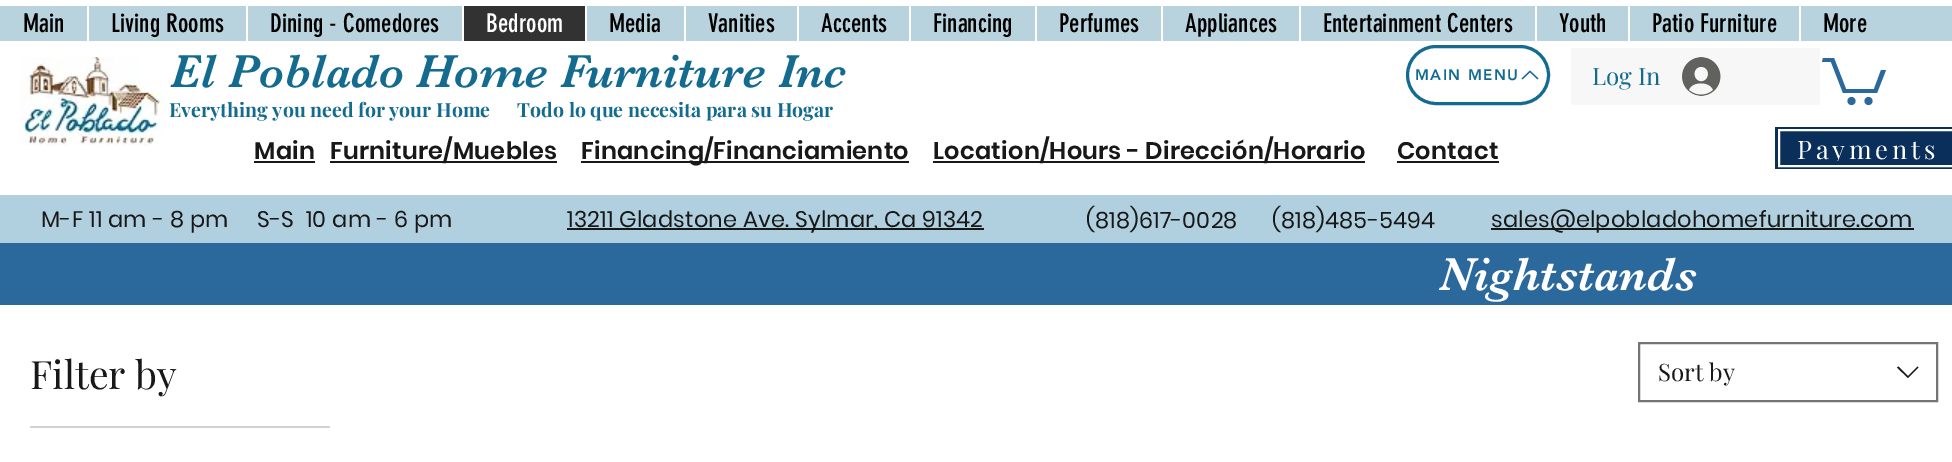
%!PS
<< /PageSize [1952 462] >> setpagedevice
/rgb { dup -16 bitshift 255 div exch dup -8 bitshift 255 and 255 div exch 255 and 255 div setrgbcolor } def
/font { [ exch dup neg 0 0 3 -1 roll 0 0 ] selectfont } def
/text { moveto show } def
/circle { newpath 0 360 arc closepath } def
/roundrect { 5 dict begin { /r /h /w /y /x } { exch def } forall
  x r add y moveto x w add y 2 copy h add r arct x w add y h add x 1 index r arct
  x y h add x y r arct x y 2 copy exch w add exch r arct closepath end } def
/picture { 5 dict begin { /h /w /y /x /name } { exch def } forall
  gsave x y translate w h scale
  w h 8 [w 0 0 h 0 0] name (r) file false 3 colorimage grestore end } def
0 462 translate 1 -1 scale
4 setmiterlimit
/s1 { /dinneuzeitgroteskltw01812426-Regular 25.5 font 16#000000 rgb } def
/s2 { /dinneuzeitgroteskltw01812426-Regular 25.5 font 16#FFFFFF rgb } def
/s3 { /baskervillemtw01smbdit-Regular 48 font 16#136C90 rgb } def
/s4 { /PlayfairDisplay-Regular 24 font 16#136C90 rgb } def
/s5 { /PlayfairDisplay-Bold 19.5 font 16#136C90 rgb } def
/s6 { /baskervillemtw01smbdit-Regular 48 font 16#FFFFFF rgb } def
/s7 { /PlayfairDisplay-Regular 39 font 16#181818 rgb } def
/s8 { /PlayfairDisplay-Regular 24 font 16#181818 rgb } def
16#FFFFFF rgb
0 0 1952 462 rectfill
16#B8D3DE rgb
0 6 1952 35 rectfill
s1
(Main) 23 32 text
16#FFFFFF rgb
87 6 2 35 rectfill
s1
(Living Rooms) 111 32 text
16#FFFFFF rgb
246 6 2 35 rectfill
s1
(Dining - Comedores) 270 32 text
16#323232 rgb
464 6 121 35 rectfill
16#FFFFFF rgb
462 6 2 35 rectfill
(Bedroom) 486 32 text
585 6 2 35 rectfill
s1
(Media) 609 32 text
16#FFFFFF rgb
684 6 2 35 rectfill
s1
(Vanities) 708 32 text
16#FFFFFF rgb
797 6 2 35 rectfill
s1
(Accents) 821 32 text
16#FFFFFF rgb
909 6 2 35 rectfill
s1
(Financing) 933 32 text
16#FFFFFF rgb
1035 6 2 35 rectfill
s1
(Perfumes) 1059 32 text
16#FFFFFF rgb
1161 6 2 35 rectfill
s1
(Appliances) 1185 32 text
16#FFFFFF rgb
1299 6 2 35 rectfill
s1
(Entertainment Centers) 1323 32 text
16#FFFFFF rgb
1535 6 2 35 rectfill
s1
(Youth) 1559 32 text
16#FFFFFF rgb
1628 6 2 35 rectfill
s1
(Patio Furniture) 1652 32 text
16#FFFFFF rgb
1799 6 2 35 rectfill
s1
(More) 1823 32 text
(pic1.raw) 19 57 145 89 picture
s3
(El Poblado Home Furniture Inc) 170 87 text
3 setlinewidth
1407.5 46.5 141 57 28.5 roundrect stroke
/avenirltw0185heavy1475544-Black 15 font
1415 80 moveto 1.5 0 (MAIN MENU) ashow
(pic2.raw) 1521 70 18 10 picture
16#F7F7F7 rgb
1571 48 249 57 rectfill
s4
(Log In) 1592 85 text
(pic3.raw) 1682 57 39 39 picture
16#2B689C rgb
1886 70 moveto 1877 93 lineto 1843 93 lineto 1831 62 lineto 1822 62 lineto 1823 58 lineto 1834 58 lineto 1846 89 lineto 1874 89 lineto 1881 70 lineto fill
1868.5 101 4 circle fill
1851.5 101 4 circle fill
s5
(Everything you need for your Home      Todo lo que necesita para su Hogar) 169 117 text
/Poppins-SemiBold 24 font
16#181818 rgb
254 159 moveto 0.25 0 (Main) ashow
254 161 61 2 rectfill
330 161 227 2 rectfill
330 159 moveto 0.25 0 (Furniture/Muebles) ashow
581 161 328 2 rectfill
581 159 moveto 0.25 0 (Financing/Financiamiento) ashow
933 161 432 2 rectfill
933 159 moveto 0.25 0 (Location/Hours - Dirección/Horario) ashow
1397 159 moveto 0.25 0 (Contact) ashow
1397 161 102 2 rectfill
16#0B2F5B rgb
1775 127 177 42 rectfill
16#FFFFFF rgb
2 setlinewidth
1779 130 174 36 rectstroke
gsave
1797 135 143 26 rectclip
/PlayfairDisplay-Regular 25.5 font
1797 159 moveto 3.75 0 (Payments) ashow
grestore
16#B1D0DF rgb
0 195 1952 48 rectfill
/Poppins-Regular 22.5 font
16#181818 rgb
41 227 moveto 0.2 0 (M-F 11 am - 8 pm     S-S  10 am - 6 pm) ashow
567 228 417 2 rectfill
567 227 moveto 0.2 0 (13211 Gladstone Ave. Sylmar, Ca 91342) ashow
1086 228 moveto 0.2 0 (\(818\)617-0028      \(818\)485-5494) ashow
1491 228 423 2 rectfill
1491 227 moveto 0.2 0 (sales@elpobladohomefurniture.com) ashow
16#2B689C rgb
0 243 1952 62 rectfill
s6
(Nightstands) 1439 290 text
16#D1D1D1 rgb
30 426 300 2 rectfill
s7
(Filter by) 30 389 text
16#747474 rgb
1639 343 298 58 rectstroke
s8
(Sort by) 1658 381 text
1917.5 366.5 moveto 1918.5 367.5 lineto 1908 378 lineto 1897 367.5 lineto 1898.5 366.5 lineto 1908 376 lineto closepath eofill
showpage
